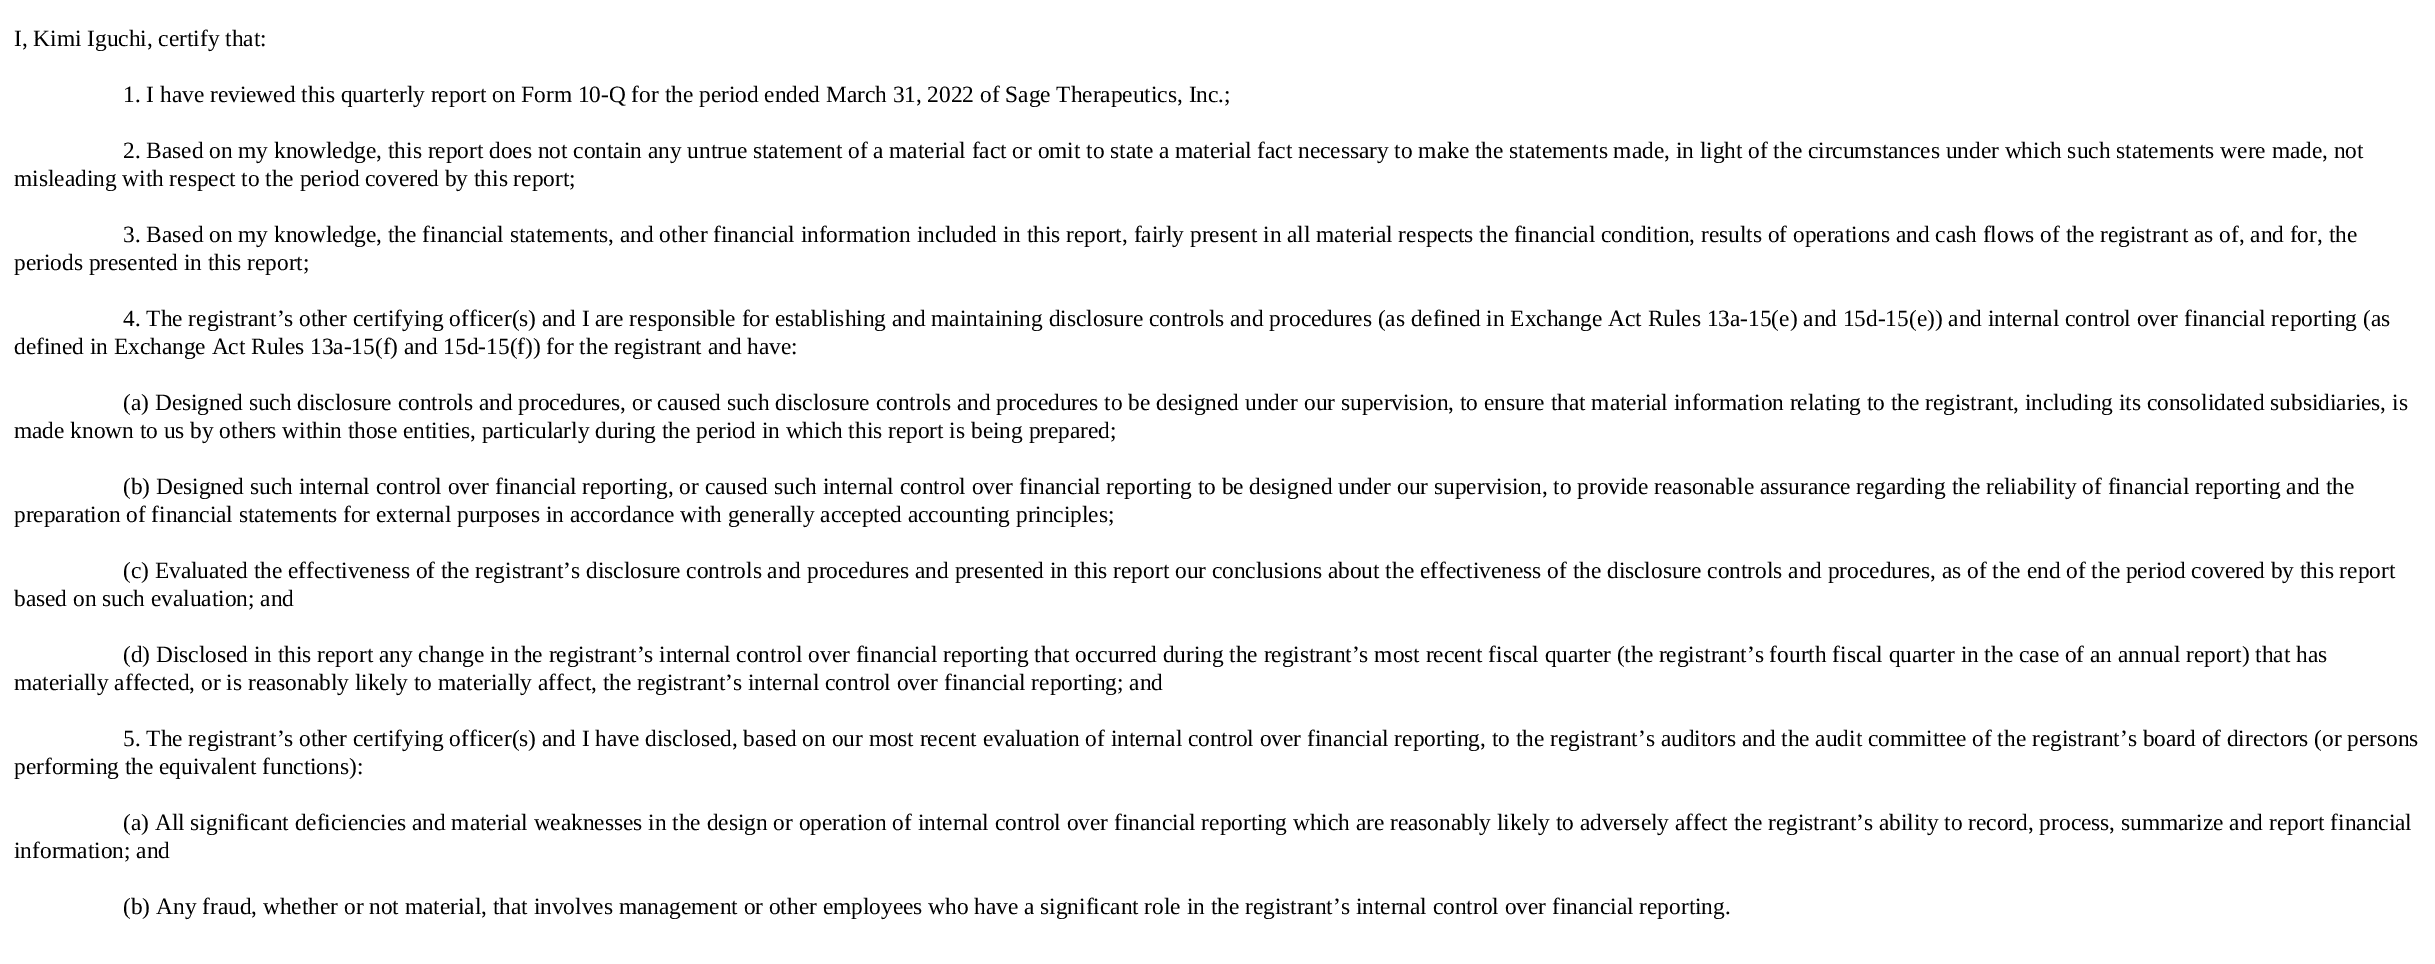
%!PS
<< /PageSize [2435 964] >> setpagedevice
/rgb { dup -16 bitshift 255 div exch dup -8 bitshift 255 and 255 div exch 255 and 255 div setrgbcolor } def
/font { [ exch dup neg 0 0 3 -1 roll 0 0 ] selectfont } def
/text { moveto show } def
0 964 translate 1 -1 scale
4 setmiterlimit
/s1 { /LiberationSerif-Regular 23.33 font 16#000000 rgb } def
16#FFFFFF rgb
0 0 2435 964 rectfill
s1
(I, Kimi Iguchi, certify that:) 14 46 text
(1. I have reviewed this quarterly report on Form 10-Q for the period ended March 31, 2022 of Sage Therapeutics, Inc.;) 123 102 text
(2. Based on my knowledge, this report does not contain any untrue statement of a material fact or omit to state a material fact necessary to make the statements made, in light of the circumstances under which such statements were made, not) 123 158 text
(misleading with respect to the period covered by this report;) 14 186 text
(3. Based on my knowledge, the financial statements, and other financial information included in this report, fairly present in all material respects the financial condition, results of operations and cash flows of the registrant as of, and for, the) 123 242 text
(periods presented in this report;) 14 270 text
(4. The registrant’s other certifying officer\(s\) and I are responsible for establishing and maintaining disclosure controls and procedures \(as defined in Exchange Act Rules 13a-15\(e\) and 15d-15\(e\)\) and internal control over financial reporting \(as) 123 326 text
(defined in Exchange Act Rules 13a-15\(f\) and 15d-15\(f\)\) for the registrant and have:) 14 354 text
(\(a\) Designed such disclosure controls and procedures, or caused such disclosure controls and procedures to be designed under our supervision, to ensure that material information relating to the registrant, including its consolidated subsidiaries, is) 123 410 text
(made known to us by others within those entities, particularly during the period in which this report is being prepared;) 14 438 text
(\(b\) Designed such internal control over financial reporting, or caused such internal control over financial reporting to be designed under our supervision, to provide reasonable assurance regarding the reliability of financial reporting and the) 123 494 text
(preparation of financial statements for external purposes in accordance with generally accepted accounting principles;) 14 522 text
(\(c\) Evaluated the effectiveness of the registrant’s disclosure controls and procedures and presented in this report our conclusions about the effectiveness of the disclosure controls and procedures, as of the end of the period covered by this report) 123 578 text
(based on such evaluation; and) 14 606 text
(\(d\) Disclosed in this report any change in the registrant’s internal control over financial reporting that occurred during the registrant’s most recent fiscal quarter \(the registrant’s fourth fiscal quarter in the case of an annual report\) that has) 123 662 text
(materially affected, or is reasonably likely to materially affect, the registrant’s internal control over financial reporting; and) 14 690 text
(5. The registrant’s other certifying officer\(s\) and I have disclosed, based on our most recent evaluation of internal control over financial reporting, to the registrant’s auditors and the audit committee of the registrant’s board of directors \(or persons) 123 746 text
(performing the equivalent functions\):) 14 774 text
(\(a\) All significant deficiencies and material weaknesses in the design or operation of internal control over financial reporting which are reasonably likely to adversely affect the registrant’s ability to record, process, summarize and report financial) 123 830 text
(information; and) 14 858 text
(\(b\) Any fraud, whether or not material, that involves management or other employees who have a significant role in the registrant’s internal control over financial reporting.) 123 914 text
showpage
